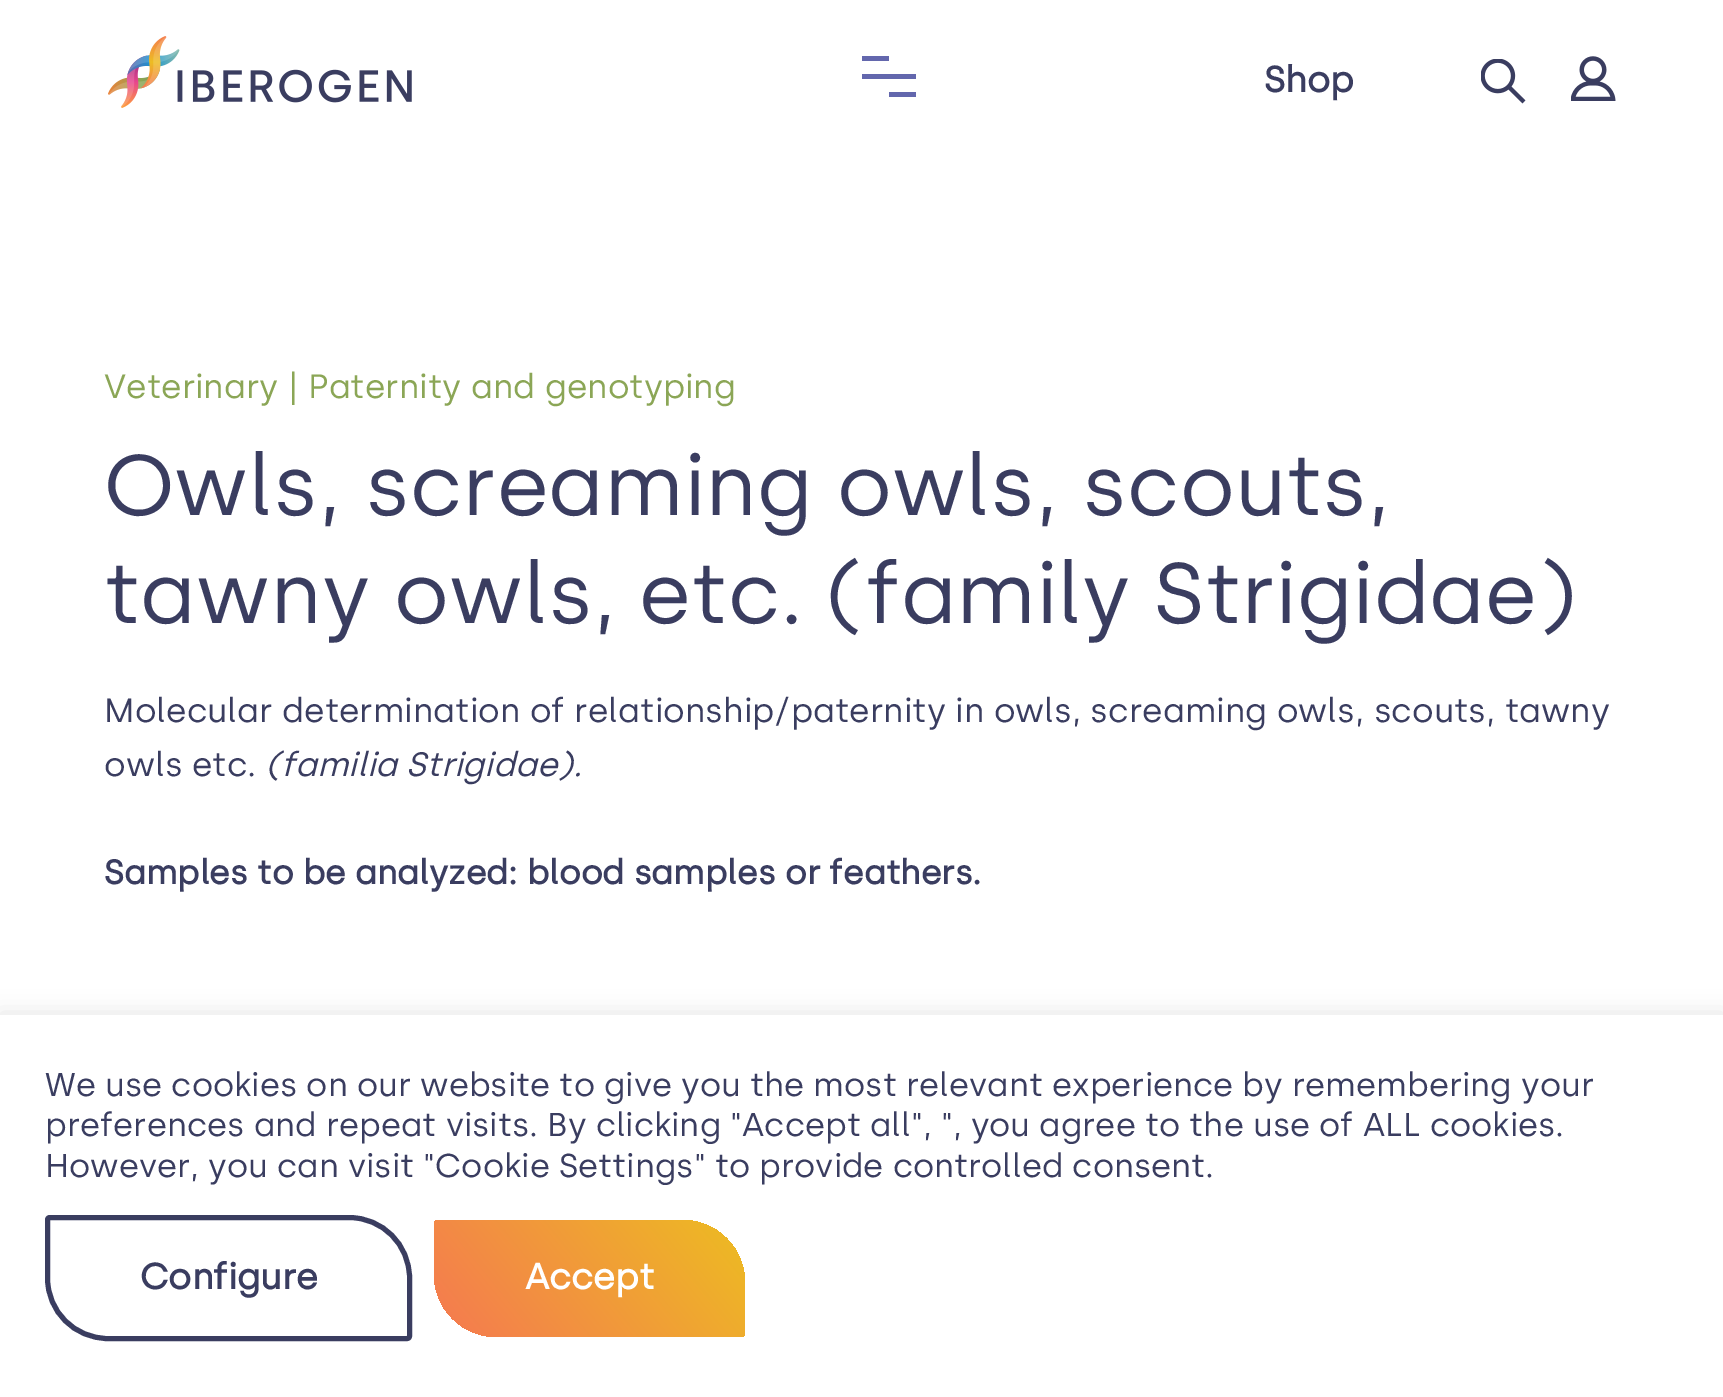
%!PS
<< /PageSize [1723 1397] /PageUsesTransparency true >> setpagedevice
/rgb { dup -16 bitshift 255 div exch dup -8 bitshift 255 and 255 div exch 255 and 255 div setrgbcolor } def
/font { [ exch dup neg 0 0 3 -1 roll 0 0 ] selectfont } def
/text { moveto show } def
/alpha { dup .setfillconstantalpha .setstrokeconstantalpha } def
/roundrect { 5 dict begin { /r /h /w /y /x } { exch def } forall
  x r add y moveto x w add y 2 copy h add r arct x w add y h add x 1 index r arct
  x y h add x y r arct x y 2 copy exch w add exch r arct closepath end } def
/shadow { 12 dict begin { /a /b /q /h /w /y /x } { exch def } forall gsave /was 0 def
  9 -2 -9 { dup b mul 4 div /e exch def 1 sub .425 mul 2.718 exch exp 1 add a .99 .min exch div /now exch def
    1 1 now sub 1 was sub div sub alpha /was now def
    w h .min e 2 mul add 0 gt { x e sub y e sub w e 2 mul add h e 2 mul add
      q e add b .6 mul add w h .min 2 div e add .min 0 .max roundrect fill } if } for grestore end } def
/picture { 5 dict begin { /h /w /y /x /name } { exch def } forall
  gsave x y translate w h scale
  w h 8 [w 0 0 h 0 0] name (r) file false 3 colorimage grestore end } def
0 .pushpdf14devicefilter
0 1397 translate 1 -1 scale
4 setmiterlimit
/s1 { /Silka-Bold 36 font 16#3A3D60 rgb } def
/s2 { /Silka-Regular 33.75 font 16#8BA656 rgb } def
/s3 { /Silka-Regular 85.5 font 16#3A3D60 rgb } def
/s4 { /Silka-Regular 33.75 font 16#3A3D60 rgb } def
/s5 { /Silka-Italic 33.75 font 16#3A3D60 rgb } def
/s6 { /Silka-Bold 33.75 font 16#3A3D60 rgb } def
/s7 { /Silka-Regular 33 font 16#3A3D60 rgb } def
/s8 { /Silka-Bold 36 font 16#FFFFFF rgb } def
16#FFFFFF rgb
0 0 1723 1397 rectfill
(pic1.raw) 108 36 304 72 picture
16#6367AD rgb
862 56 27 5 rectfill
862 74 54 5 rectfill
889 92 27 5 rectfill
s1
(Shop) 1264 92 text
(pic2.raw) 1481 59 45 45 picture
(pic3.raw) 1571 56 45 45 picture
s2
(Veterinary | Paternity and genotyping) 104 398 text
s3
(Owls, screaming owls, scouts,) 104 515 text
(tawny owls, etc. \(family Strigidae\)) 104 623 text
s4
(Molecular determination of relationship/paternity in owls, screaming owls, scouts, tawny) 104 722 text
(owls etc.) 104 776 text
s5
(\(familia Strigidae\).) 266 776 text
s6
(Samples to be analyzed: blood samples or feathers.) 104 884 text
16#ACABAB rgb
0 1013 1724 382 0 11 0.3 shadow
16#FFFFFF rgb
0 1015 1723 382 rectfill
s7
(We use cookies on our website to give you the most relevant experience by remembering your) 45 1096 text
(preferences and repeat visits. By clicking "Accept all", ", you agree to the use of ALL cookies.) 45 1136 text
(However, you can visit "Cookie Settings" to provide controlled consent.) 45 1177 text
5 setlinewidth
50 1217.5 moveto 349 1217.5 lineto 382.5 1217.5 409.5 1244.5 409.5 1278 curveto 409.5 1336 lineto 409.5 1337.5 408.5 1338.5 407 1338.5 curveto 108 1338.5 lineto 74.5 1338.5 47.5 1311.5 47.5 1278 curveto 47.5 1220 lineto 47.5 1218.5 48.5 1217.5 50 1217.5 curveto closepath stroke
s1
(Configure) 140 1289 text
gsave 439 1220 moveto 682 1220 lineto 717 1220 745 1248 745 1283 curveto 745 1332 lineto 745 1335 743 1337 740 1337 curveto 497 1337 lineto 462 1337 434 1309 434 1274 curveto 434 1225 lineto 434 1222 436 1220 439 1220 curveto closepath clip newpath
<< /ShadingType 2 /ColorSpace /DeviceRGB /Coords [468 1377 711 1179] /Extend [true true] /Function << /FunctionType 2 /Domain [0 1] /C0 [0.961 0.475 0.318] /C1 [0.929 0.737 0.133] /N 1 >> >> shfill grestore
s8
(Accept) 525 1289 text
.poppdf14devicefilter showpage
